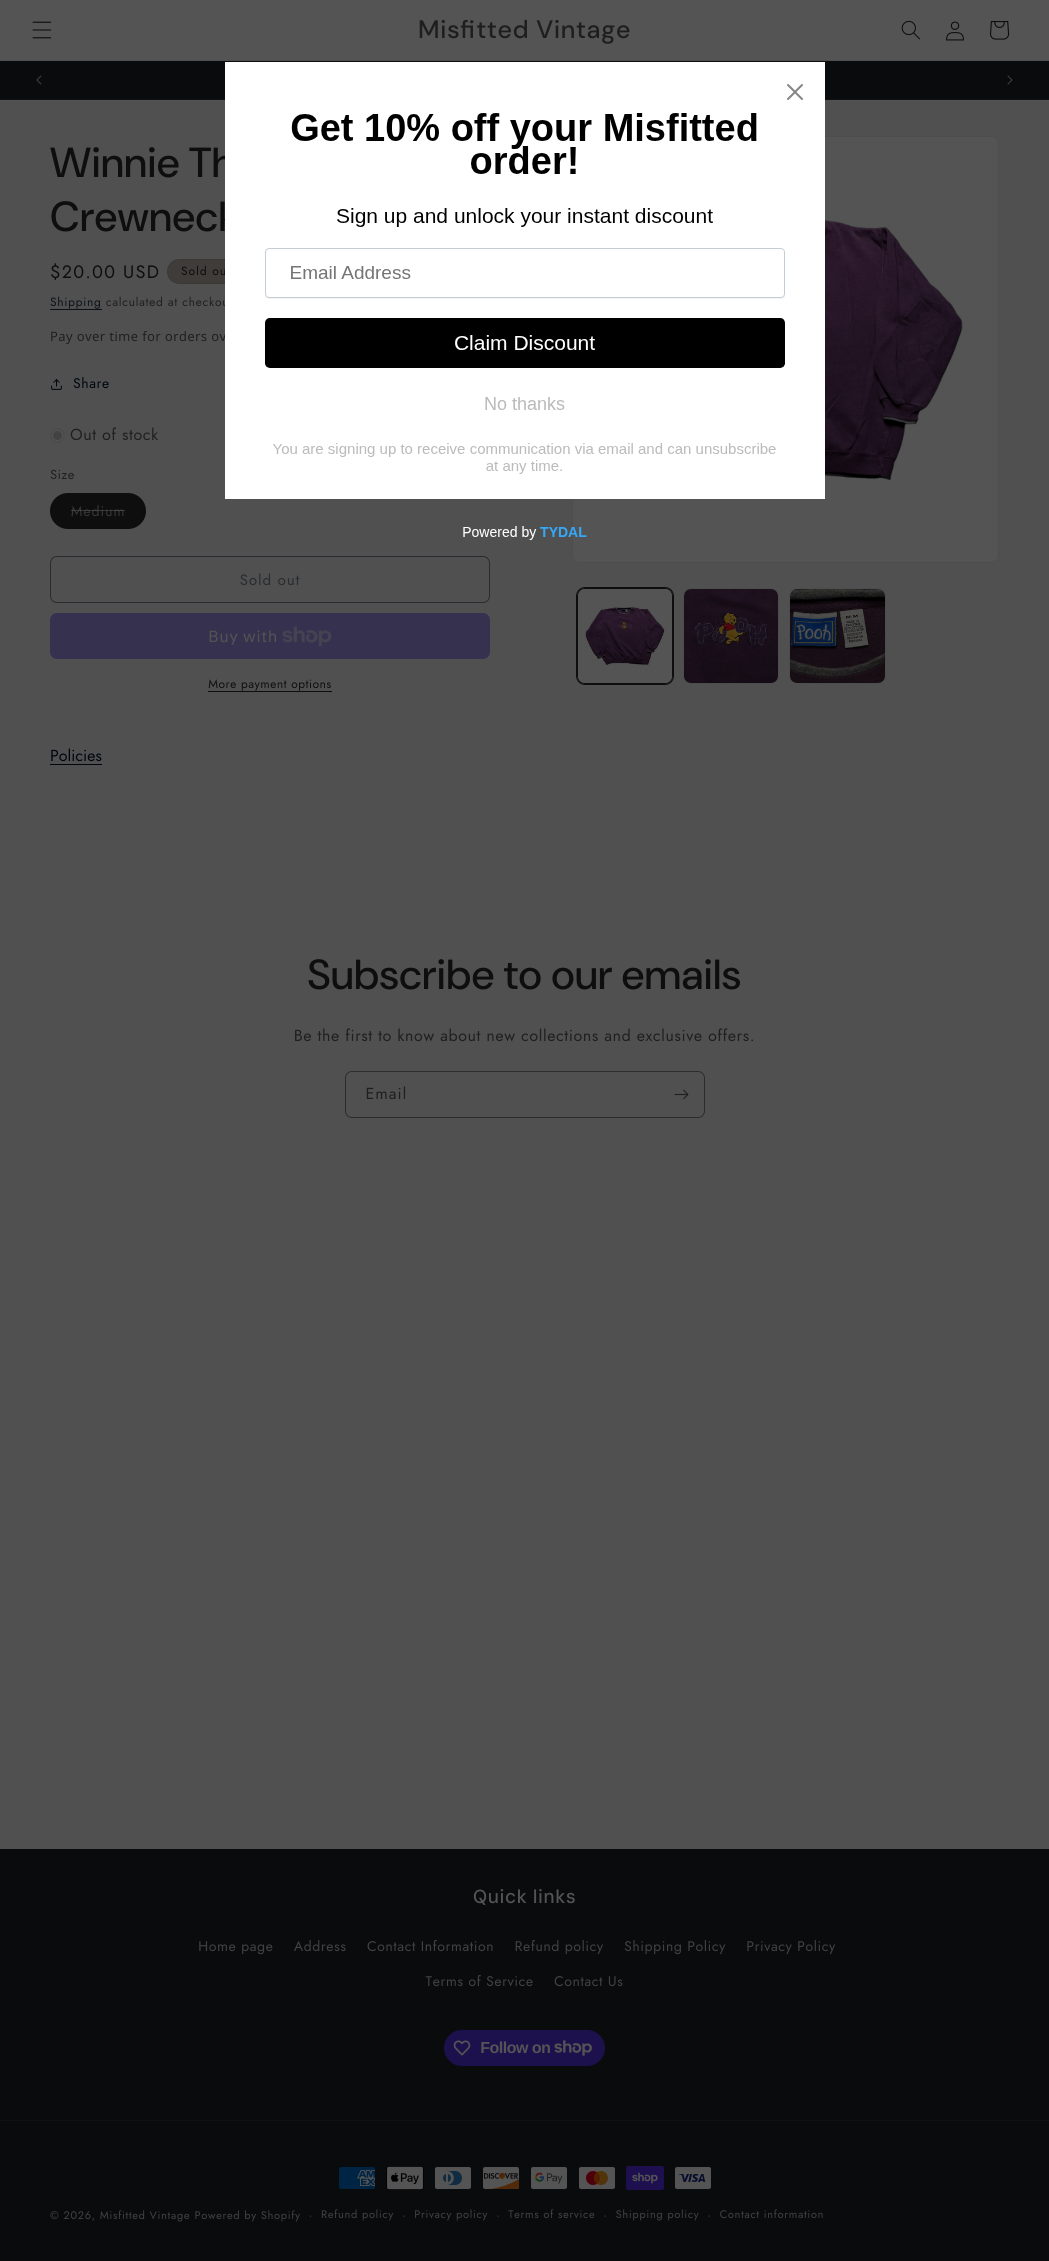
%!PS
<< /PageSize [1049 2261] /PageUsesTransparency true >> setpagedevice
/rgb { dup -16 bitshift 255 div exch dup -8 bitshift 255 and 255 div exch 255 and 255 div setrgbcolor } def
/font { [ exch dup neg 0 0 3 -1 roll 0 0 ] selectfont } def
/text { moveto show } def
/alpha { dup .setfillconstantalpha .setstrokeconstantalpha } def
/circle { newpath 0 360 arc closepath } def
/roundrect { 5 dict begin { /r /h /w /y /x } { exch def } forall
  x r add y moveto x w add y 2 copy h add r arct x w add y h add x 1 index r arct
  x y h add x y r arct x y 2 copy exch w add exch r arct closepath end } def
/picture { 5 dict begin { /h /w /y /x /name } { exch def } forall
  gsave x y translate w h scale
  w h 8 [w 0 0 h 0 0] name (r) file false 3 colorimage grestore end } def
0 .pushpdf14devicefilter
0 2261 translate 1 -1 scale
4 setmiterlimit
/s1 { /Jost-Regular 16 font 16#001128 rgb } def
16#F4F4F4 rgb
0 0 1049 2261 rectfill
16#FFFFFF rgb
0 0 1049 60 rectfill
16#EEEEEE rgb
0 60 1049 1 rectfill
(pic2.raw) 32 21 20 18 picture
/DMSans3-Medium 25.25 font
16#5D5E5F rgb
418 38 moveto 0.6 0 (Misfitted Vintage) ashow
(pic3.raw) 901 20 19 20 picture
(pic4.raw) 946 21 18 20 picture
(pic5.raw) 990 21 20 19 picture
16#1C2228 rgb
0 61 1049 38 rectfill
16#2E3439 rgb
0 99 1049 1 rectfill
(pic6.raw) 36 75 6 10 picture
(pic7.raw) 1007 75 6 10 picture
/DMSans-Medium 42 font
16#2B2C2D rgb
50 177 moveto 0.6 0 (Winnie Th) ashow
50 231 moveto 0.6 0 (Crewneck) ashow
/Jost-Regular 18 font
50 278 moveto 1.25 0 ($20.00 USD) ashow
16#C2B7AC rgb
167 259 78 25 12.5 roundrect fill
0.1 alpha
16#262626 rgb
167.5 259.5 77 24 12 roundrect stroke
/Jost-Regular 12 font
1 alpha
181 275 moveto 1 0 (Sold ou) ashow
16#253347 rgb
50 306 moveto 0.7 0 (Shipping) ashow
50 309 52 1 rectfill
16#5D5E5F rgb
106 306 moveto 0.7 0 (calculated at checko) ashow
/NotoSans-Regular 13 font
50 341 moveto 0.4 0 (Pay over time for orders ov) ashow
(pic8.raw) 51 379 11 11 picture
/Jost-Regular 14 font
16#001128 rgb
73 388 moveto 0.6 0 (Share) ashow
16#E7E7E7 rgb
57.5 435.5 7.5 circle fill
16#C8C8C8 rgb
57.5 435.5 5 circle gsave fill grestore
16#FFFFFF rgb
stroke
/Jost-Regular 16 font
16#5D5E5F rgb
70 440 moveto 0.6 0 (Out of stock) ashow
/Jost-Regular 13 font
50 479 moveto 0.4 0 (Size) ashow
16#2B2C2D rgb
50 493 96 36 18 roundrect fill
0.1 alpha
50.5 493.5 95 35 17.5 roundrect stroke
/Jost-Regular 14 font
1 alpha
16#A4A4A4 rgb
71 516 moveto 1 0 (Medium) ashow
0.6 alpha
16#F4F4F4 rgb
71 510 54 1 rectfill
1 alpha
16#7A838E rgb
50.5 556.5 439 46 6.5 roundrect stroke
/Jost-Regular 15 font
240 585 moveto 1 0 (Sold out) ashow
16#A494F0 rgb
50 613 440 46 7 roundrect fill
/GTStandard-Regular 16 font
16#FAFAFA rgb
208 642 moveto 0.6 0 (Buy with) ashow
(pic9.raw) 282 626 50 20 picture
/Jost-Regular 12 font
16#2B2C2D rgb
208 688 moveto 0.5 0 (More payment options) ashow
208 691 124 1 rectfill
s1
(Policies) 50 761 text
50 764 52 1 rectfill
16#EAEAEA rgb
572.5 136.5 426 426 7.5 roundrect stroke
(pic10.raw) 573 137 425 425 picture
16#2B2C2D rgb
576.5 587.5 97 97 8.5 roundrect stroke
577.5 588.5 95 95 7.5 roundrect stroke
(pic11.raw) 578 589 94 94 picture
16#EAEAEA rgb
683.5 588.5 95 95 7.5 roundrect stroke
(pic12.raw) 684 589 94 94 picture
789.5 588.5 96 95 7.5 roundrect stroke
(pic13.raw) 790 589 95 94 picture
/DMSans-Medium 42 font
16#2B2C2D rgb
307 989 moveto 0.6 0 (Subscribe to our emails) ashow
/Jost-Regular 16 font
16#5D5E5F rgb
294 1041 moveto 0.6 0 (Be the first to know about new collections and exclusive offers.) ashow
16#858687 rgb
345.5 1071.5 359 46 6.5 roundrect stroke
16#5D5E5F rgb
366 1099 moveto 1 0 (Email) ashow
(pic14.raw) 674 1089 15 11 picture
16#1C2228 rgb
0 1849 1049 412 rectfill
/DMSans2-Medium 19 font
16#FAFAFA rgb
473 1903 moveto 0.6 0 (Quick links) ashow
/Jost-Regular 14 font
16#C6C8C9 rgb
198 1951 moveto 0.6 0 (Home page) ashow
294 1951 moveto 0.6 0 (Address) ashow
367 1951 moveto 0.6 0 (Contact Information) ashow
515 1951 moveto 0.6 0 (Refund policy) ashow
624 1951 moveto 0.6 0 (Shipping Policy) ashow
746 1951 moveto 0.6 0 (Privacy Policy) ashow
426 1986 moveto 0.6 0 (Terms of Service) ashow
554 1986 moveto 0.6 0 (Contact Us) ashow
16#5433EB rgb
444 2030 161 36 18 roundrect fill
(pic15.raw) 453 2040 18 16 picture
/LiberationSans-Bold 16 font
16#FAFAFA rgb
480 2053 moveto -0.5 0 (Follow on) ashow
(pic16.raw) 554 2040 38 16 picture
16#2E3439 rgb
0 2120 1049 1 rectfill
(pic17.raw) 339 2167 36 22 picture
(pic18.raw) 386 2166 38 24 picture
(pic19.raw) 435 2167 36 22 picture
(pic20.raw) 483 2167 36 22 picture
(pic21.raw) 531 2167 36 22 picture
(pic22.raw) 579 2167 36 22 picture
(pic23.raw) 626 2166 38 24 picture
(pic24.raw) 675 2167 36 22 picture
/Jost-Regular 11 font
16#C6C8C9 rgb
50 2219 moveto 0.7 0 (© 2026, Misfitted Vintage) ashow
195 2219 moveto 0.7 0 (Powered by Shopify) ashow
/Jost-Regular 12 font
309 2219 moveto 0.7 0 (·) ashow
/Jost-Regular 11 font
321 2218 moveto 0.7 0 (Refund policy) ashow
/Jost-Regular 12 font
402 2219 moveto 0.7 0 (·) ashow
/Jost-Regular 11 font
414 2218 moveto 0.7 0 (Privacy policy) ashow
/Jost-Regular 12 font
496 2219 moveto 0.7 0 (·) ashow
/Jost-Regular 11 font
508 2218 moveto 0.7 0 (Terms of service) ashow
/Jost-Regular 12 font
603 2219 moveto 0.7 0 (·) ashow
/Jost-Regular 11 font
616 2218 moveto 0.7 0 (Shipping policy) ashow
/Jost-Regular 12 font
707 2219 moveto 0.7 0 (·) ashow
/Jost-Regular 11 font
720 2218 moveto 0.7 0 (Contact information) ashow
(pic1.raw) 0 0 1049 2261 picture
.poppdf14devicefilter showpage
